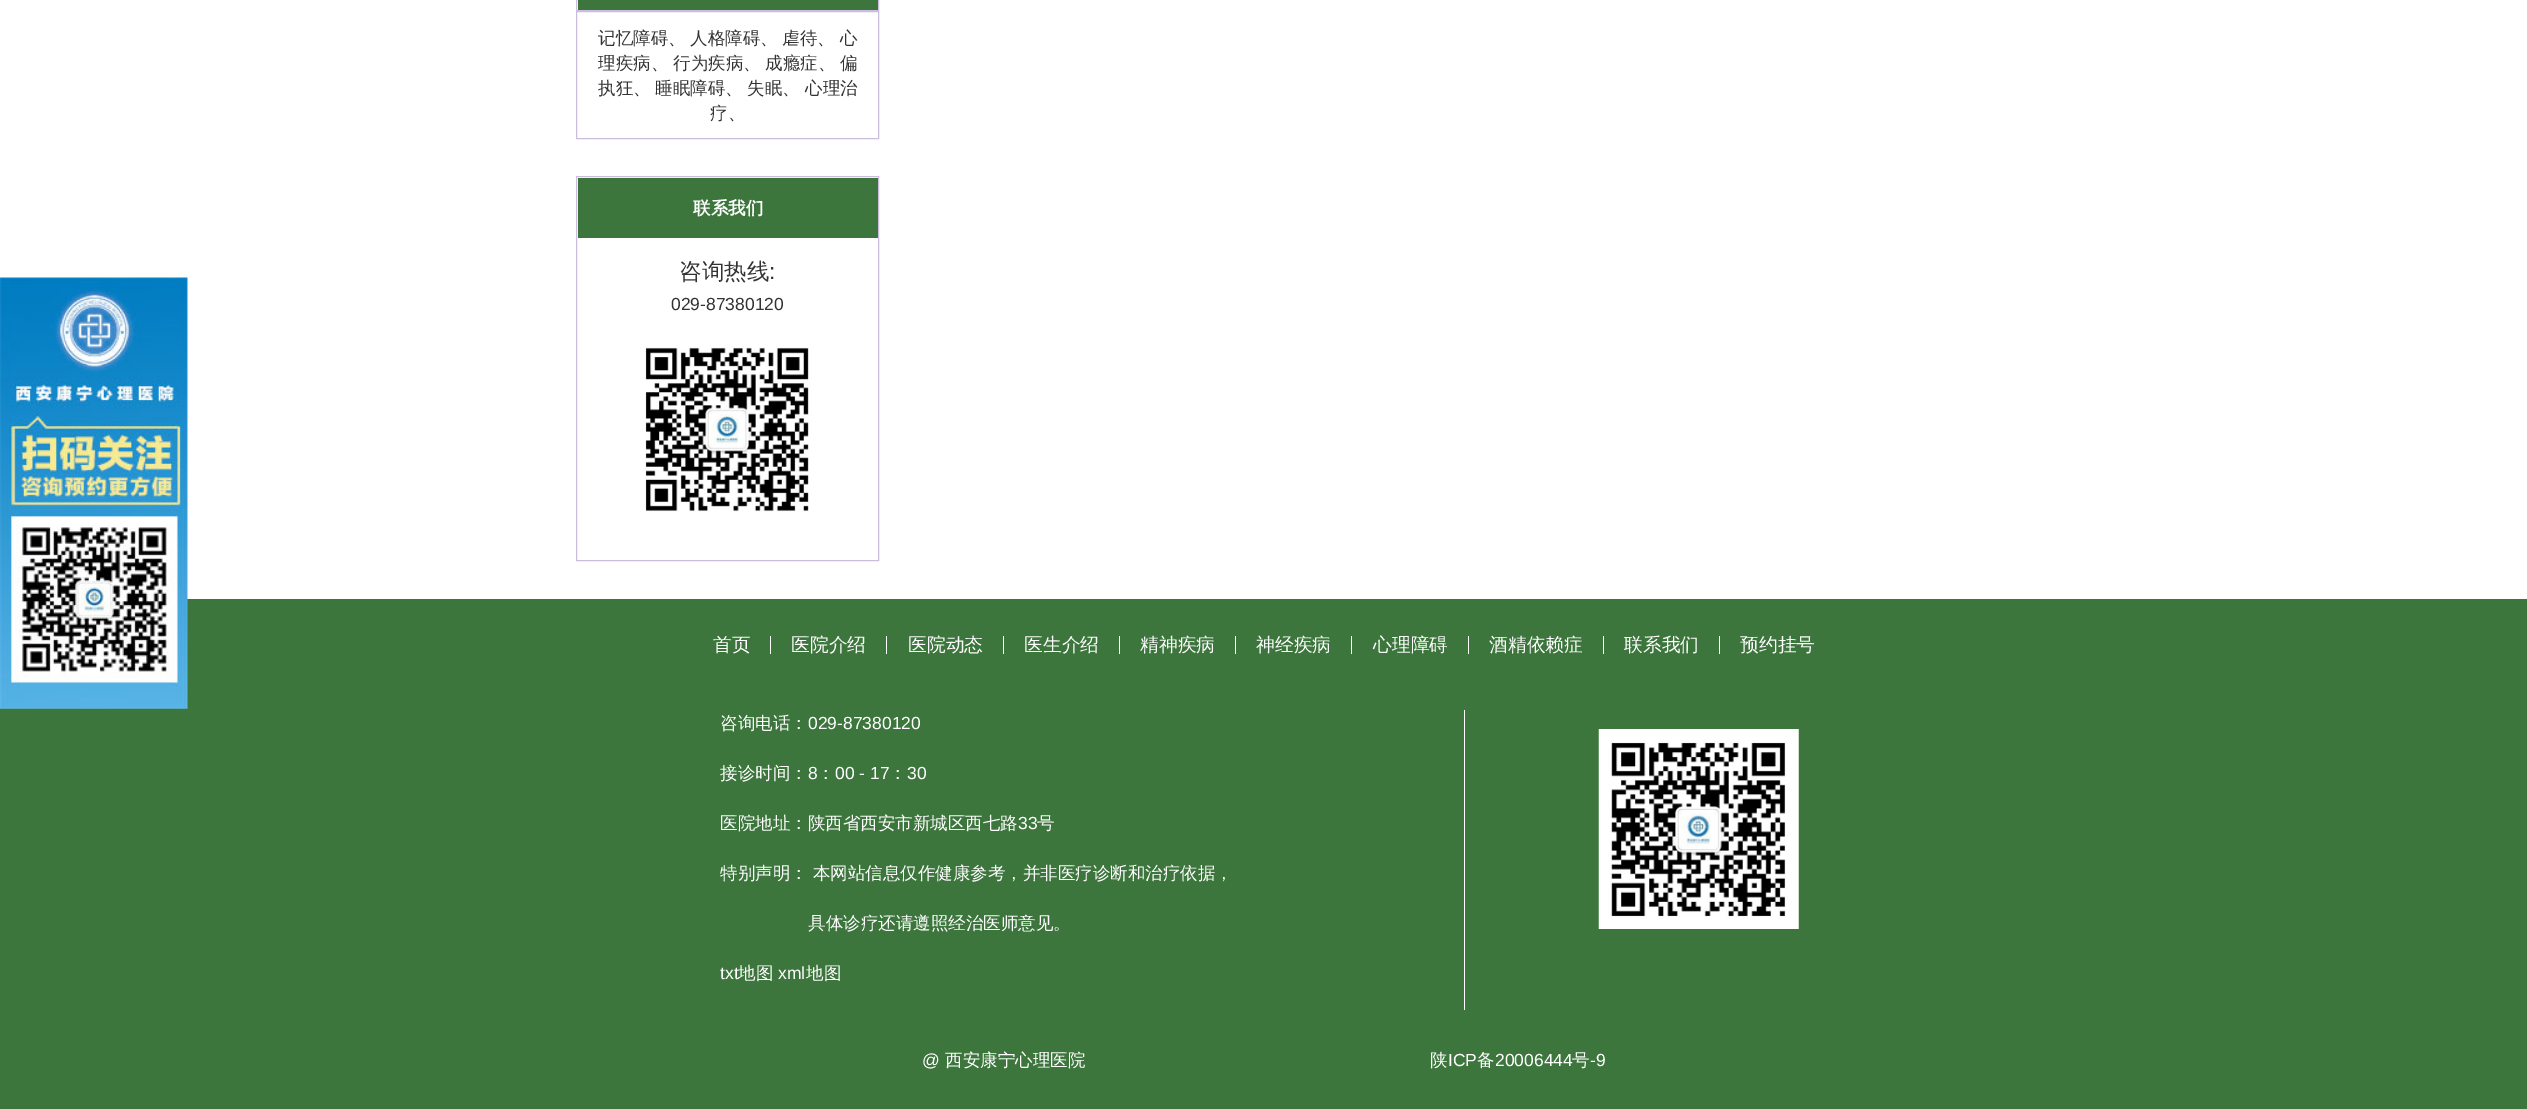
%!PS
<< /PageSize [2527 1109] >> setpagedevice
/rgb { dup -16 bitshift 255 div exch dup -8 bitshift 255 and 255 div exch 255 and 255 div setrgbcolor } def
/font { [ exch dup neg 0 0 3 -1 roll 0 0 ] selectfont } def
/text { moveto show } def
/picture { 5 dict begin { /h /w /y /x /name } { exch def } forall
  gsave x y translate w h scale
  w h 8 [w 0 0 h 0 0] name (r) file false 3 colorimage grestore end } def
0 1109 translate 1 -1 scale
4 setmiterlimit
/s1 { /WenQuanYiZenHei-Medium 17.5 font 16#333333 rgb } def
/s2 { /WenQuanYiZenHei-Bold 17.5 font 16#FFFFFF rgb } def
/s3 { /WenQuanYiZenHei-Medium 22.5 font 16#333333 rgb } def
/s4 { /LiberationSans-Regular 22.5 font 16#333333 rgb } def
/s5 { /LiberationSans-Regular 17.5 font 16#333333 rgb } def
/s6 { /WenQuanYiZenHei-Medium 18.75 font 16#FFFFFF rgb } def
/s7 { /WenQuanYiZenHei-Medium 17.5 font 16#FFFFFF rgb } def
/s8 { /LiberationSans-Regular 17.5 font 16#FFFFFF rgb } def
16#FFFFFF rgb
0 0 2527 1109 rectfill
16#CABEDC rgb
576.5 -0.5 302 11 rectstroke
16#3C763D rgb
578 0 300 10 rectfill
16#CABEDC rgb
576.5 11.5 302 127 rectstroke
s1
(记忆障碍、) 598 44 text
(人格障碍、) 690 44 text
(虐待、) 782 44 text
(心) 840 44 text
(理疾病、) 598 69 text
(行为疾病、) 673 69 text
(成瘾症、) 765 69 text
(偏) 840 69 text
(执狂、) 598 94 text
(睡眠障碍、) 655 94 text
(失眠、) 747 94 text
(心理治) 805 94 text
(疗、) 710 119 text
16#CABEDC rgb
576.5 176.5 302 384 rectstroke
16#3C763D rgb
578 178 300 60 rectfill
s2
(联系我们) 693 214 text
s3
(咨询热线) 679 279 text
s4
(:) 769 279 text
s5
(029-87380120) 671 310 text
(pic1.raw) 645 347 164 165 picture
16#3C763D rgb
0 599 2527 510 rectfill
(pic2.raw) 0 277 188 432 picture
16#FFFFFF rgb
770 636 1 18 rectfill
s6
(首页) 713 651 text
886 636 1 18 rectfill
(医院介绍) 791 651 text
1003 636 1 18 rectfill
(医院动态) 908 651 text
1119 636 1 18 rectfill
(医生介绍) 1024 651 text
1235 636 1 18 rectfill
(精神疾病) 1140 651 text
1351 636 1 18 rectfill
(神经疾病) 1256 651 text
1468 636 1 18 rectfill
(心理障碍) 1373 651 text
1603 636 1 18 rectfill
(酒精依赖症) 1489 651 text
1719 636 1 18 rectfill
(联系我们) 1624 651 text
(预约挂号) 1740 651 text
1464 710 1 300 rectfill
s7
(咨询电话：) 720 729 text
s8
(029-87380120) 808 729 text
s7
(接诊时间：) 720 779 text
s8
(8) 808 779 text
s7
(：) 817 779 text
s8
(00 - 17) 835 779 text
s7
(：) 889 779 text
s8
(30) 907 779 text
s7
(医院地址：陕西省西安市新城区西七路) 720 829 text
s8
(33) 1018 829 text
s7
(号) 1037 829 text
(特别声明： 本网站信息仅作健康参考，并非医疗诊断和治疗依据，) 720 879 text
(具体诊疗还请遵照经治医师意见。) 808 929 text
s8
(txt) 720 979 text
s7
(地图) 738 979 text
s8
(xml) 778 979 text
s7
(地图) 806 979 text
(pic3.raw) 1598 729 201 200 picture
s8
(@) 922 1066 text
s7
(西安康宁心理医院) 945 1066 text
(陕) 1430 1066 text
s8
(ICP) 1448 1066 text
s7
(备) 1477 1066 text
s8
(20006444) 1495 1066 text
s7
(号) 1572 1066 text
s8
(-9) 1590 1066 text
showpage
